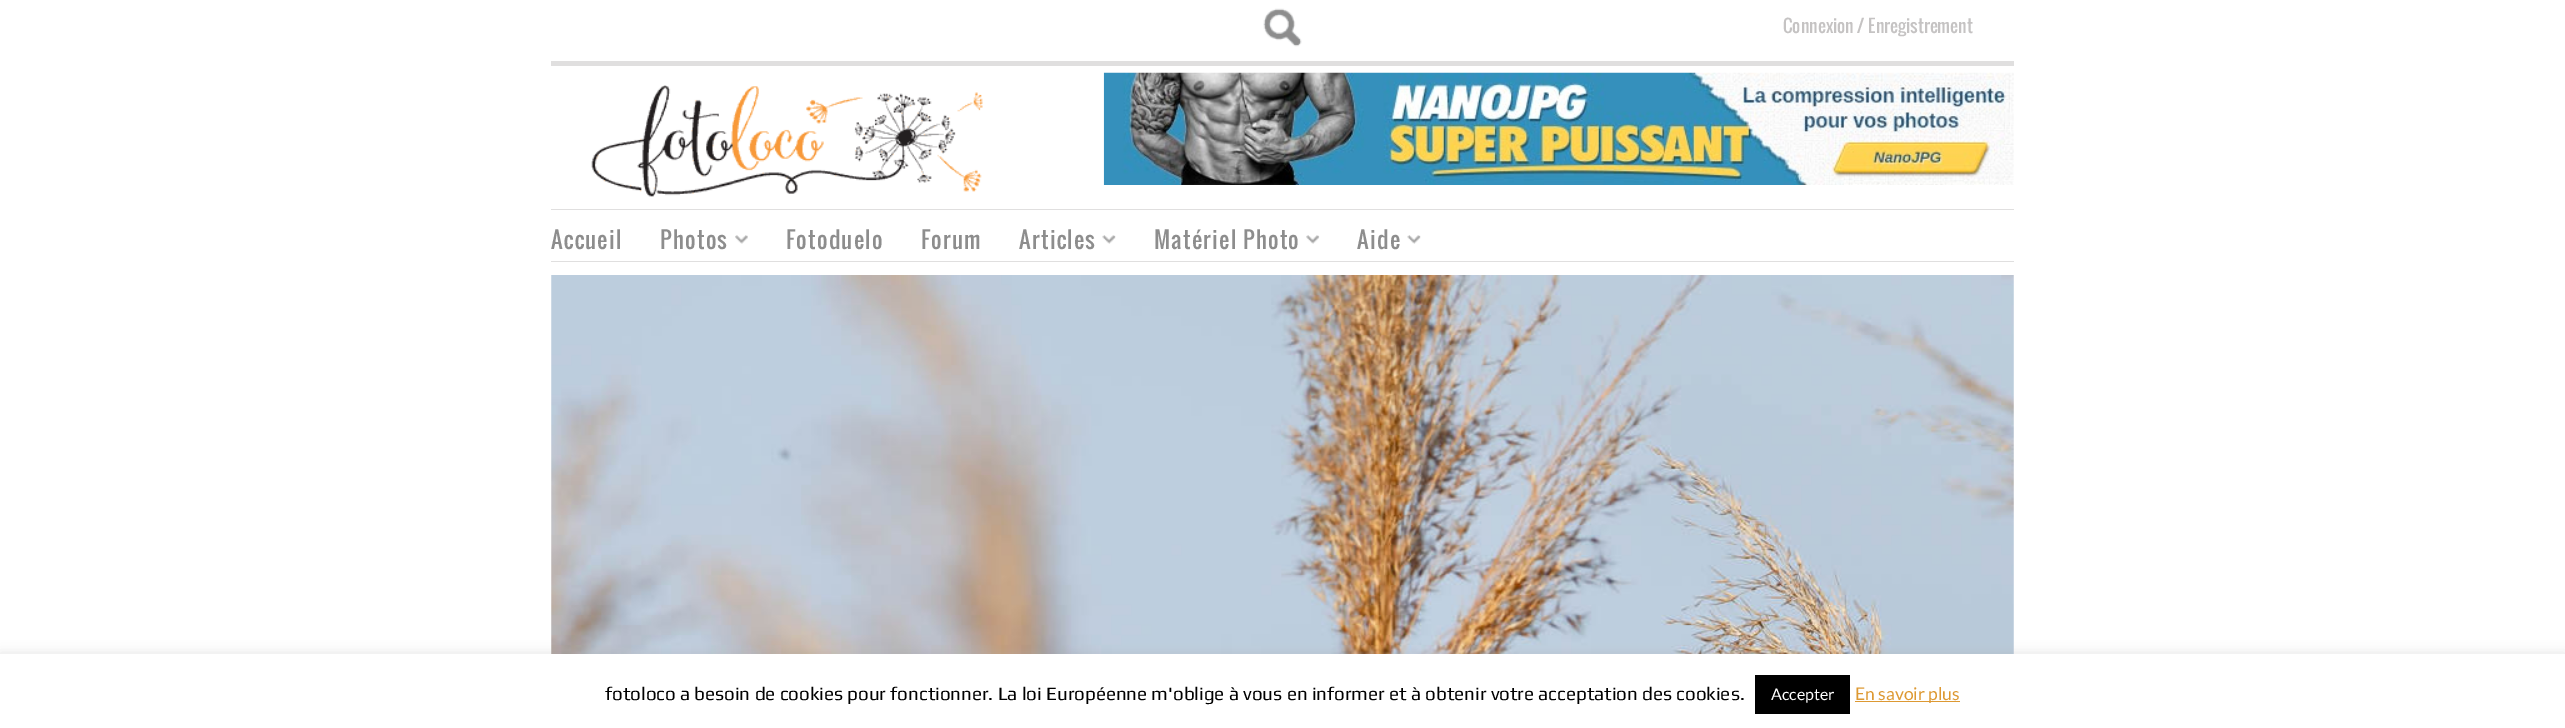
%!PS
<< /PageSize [2565 728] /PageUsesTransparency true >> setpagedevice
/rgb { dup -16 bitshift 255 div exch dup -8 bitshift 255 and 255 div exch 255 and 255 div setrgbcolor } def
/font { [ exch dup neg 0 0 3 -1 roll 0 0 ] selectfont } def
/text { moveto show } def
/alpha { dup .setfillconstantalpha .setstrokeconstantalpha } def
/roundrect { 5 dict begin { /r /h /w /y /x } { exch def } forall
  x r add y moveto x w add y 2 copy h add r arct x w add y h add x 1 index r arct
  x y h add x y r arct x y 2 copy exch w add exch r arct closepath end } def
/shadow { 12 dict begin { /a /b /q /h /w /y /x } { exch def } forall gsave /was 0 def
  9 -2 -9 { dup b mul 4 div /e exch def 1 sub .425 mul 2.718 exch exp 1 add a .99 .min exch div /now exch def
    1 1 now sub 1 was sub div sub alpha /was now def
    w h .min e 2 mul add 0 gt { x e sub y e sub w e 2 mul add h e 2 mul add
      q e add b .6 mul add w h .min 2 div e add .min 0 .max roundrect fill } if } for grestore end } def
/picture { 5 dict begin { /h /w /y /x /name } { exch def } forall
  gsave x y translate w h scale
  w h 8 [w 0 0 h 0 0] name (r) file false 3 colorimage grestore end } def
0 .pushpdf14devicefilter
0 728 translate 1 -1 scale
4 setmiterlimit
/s1 { /Oswald-Regular 17.5 font 16#C5C3C3 rgb } def
/s2 { /Play-Regular 18.75 font 16#000000 rgb } def
/s3 { /Lato-Regular 16 font 16#FFFFFF rgb } def
/s4 { /Lato-Regular 17.5 font 16#DD9933 rgb } def
16#FFFFFF rgb
0 0 2565 728 rectfill
(pic1.raw) 1263 8 39 39 picture
s1
(Connexion / Enregistrement) 1783 33 text
16#E0DFDF rgb
551 61 1463 5 rectfill
(pic2.raw) 591 85 392 112 picture
(pic3.raw) 1103 72 911 113 picture
551 209 1463 1 rectfill
/Oswald-Regular 22.5 font
16#8D8D8D rgb
551 249 moveto 1.25 0 (Accueil) ashow
660 249 moveto 1.25 0 (Photos) ashow
(pic4.raw) 735 235 13 9 picture
786 249 moveto 1.25 0 (Fotoduelo) ashow
921 249 moveto 1.25 0 (Forum) ashow
1019 249 moveto 1.25 0 (Articles) ashow
(pic5.raw) 1102 235 14 9 picture
1154 249 moveto 1.25 0 (Matériel Photo) ashow
(pic6.raw) 1306 235 14 9 picture
1357 249 moveto 1.25 0 (Aide) ashow
(pic7.raw) 1407 235 14 9 picture
16#E0DFDF rgb
551 261 1463 1 rectfill
(pic8.raw) 551 275 1463 379 picture
16#ACABAB rgb
0 653 2565 75 0 6 0.3 shadow
16#FFFFFF rgb
0 654 2565 74 rectfill
s2
(fotoloco a besoin de cookies pour fonctionner. La loi Européenne m'oblige à vous en informer et à obtenir votre acceptation des cookies.) 605 700 text
1755 675 95 39 rectfill
s3
(Accepter) 1771 700 text
16#DD9933 rgb
1855 701 105 1 rectfill
s4
(En savoir plus) 1855 700 text
.poppdf14devicefilter showpage
